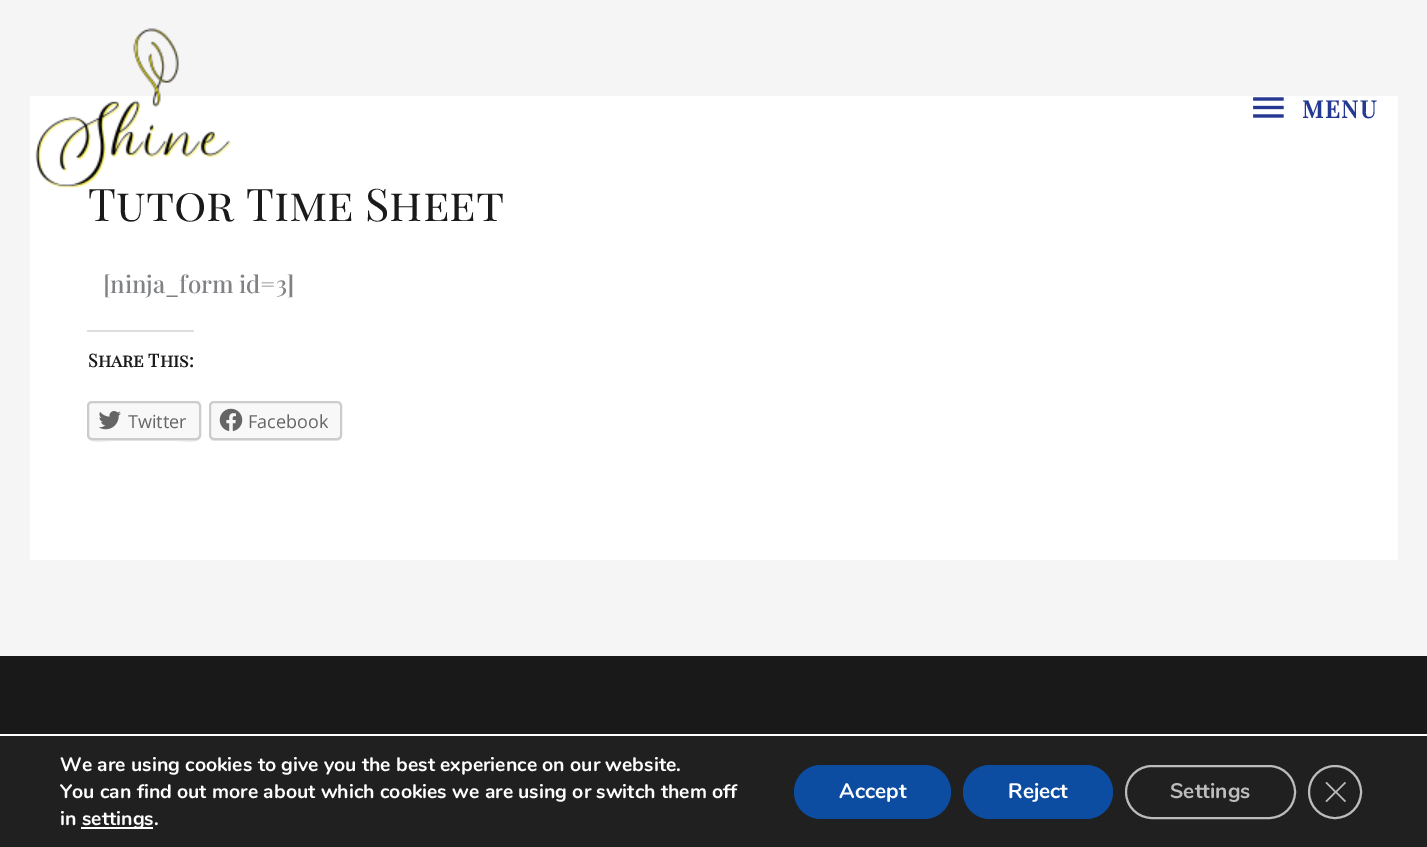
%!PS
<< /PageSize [1427 847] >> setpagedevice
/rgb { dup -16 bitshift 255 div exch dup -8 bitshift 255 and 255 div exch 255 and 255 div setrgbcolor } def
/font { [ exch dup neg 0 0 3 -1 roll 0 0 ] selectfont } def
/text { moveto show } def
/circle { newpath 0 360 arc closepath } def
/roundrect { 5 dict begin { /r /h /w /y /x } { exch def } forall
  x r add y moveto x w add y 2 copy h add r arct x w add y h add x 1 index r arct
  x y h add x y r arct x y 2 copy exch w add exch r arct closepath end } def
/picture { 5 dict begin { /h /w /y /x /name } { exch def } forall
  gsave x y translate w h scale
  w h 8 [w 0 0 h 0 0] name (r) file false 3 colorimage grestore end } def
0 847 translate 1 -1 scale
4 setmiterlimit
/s1 { /PlayfairDisplaySC-Regular 45 font 16#1A1A1A rgb } def
/s2 { /PlayfairDisplay-Medium 24 font 16#808285 rgb } def
/s3 { /PlayfairDisplaySC-Bold 18 font 16#1A1A1A rgb } def
/s4 { /OpenSans-Regular 18 font 16#656565 rgb } def
/s5 { /Nunito-Bold 19.5 font 16#FFFFFF rgb } def
/s6 { /Nunito-Bold 21 font 16#FFFFFF rgb } def
/s7 { /Nunito-Bold 21 font 16#BCBCBC rgb } def
16#F5F5F5 rgb
0 0 1427 847 rectfill
16#FFFFFF rgb
30 96 1368 464 rectfill
(pic1.raw) 35 28 197 160 picture
(pic2.raw) 1253 97 31 21 picture
/PlayfairDisplay-Bold 24 font
16#253993 rgb
1302 118 moveto 1.5 0 (MENU) ashow
s1
(Tutor Time Sheet) 88 221 text
s2
([ninja_form id=3]) 103 293 text
16#DDDDDD rgb
87 330 107 2 rectfill
s3
(Share This:) 88 367 text
16#EBEBEB rgb
87 435 moveto 87 445 105 441 109 441 curveto 179 441 lineto 183 441 201 445 201 435 curveto 201 437 199 440 196 440 curveto 92 440 lineto 89 440 87 437 87 435 curveto closepath fill
16#F8F8F8 rgb
88 402 112 37 4 roundrect gsave fill grestore
16#CCCCCC rgb
2 setlinewidth
stroke
(pic3.raw) 98 411 23 19 picture
s4
(Twitter) 128 428 text
16#EBEBEB rgb
209 437 moveto 210 439 212 441 214 441 curveto 337 441 lineto 340 441 342 439 342 436 curveto 342 435 lineto 342 437 340 440 338 440 curveto 213 440 lineto 211 440 210 439 209 437 curveto closepath fill
16#F8F8F8 rgb
210 402 131 37 4 roundrect gsave fill grestore
16#CCCCCC rgb
stroke
(pic4.raw) 219 408 24 23 picture
s4
(Facebook) 248 428 text
16#1A1919 rgb
0 656 1427 78 rectfill
16#202020 rgb
0 736 1427 111 rectfill
16#FFFFFF rgb
0 734 1427 2 rectfill
s5
(We are using cookies to give you the best experience on our website.) 60 771 text
(You can find out more about which cookies we are using or switch them off) 60 798 text
(in) 60 825 text
81 827 72 2 rectfill
(settings.) 82 825 text
16#0C4DA2 rgb
794 765 157 54 27 roundrect fill
s6
(Accept) 839 798 text
16#0C4DA2 rgb
963 765 150 54 27 roundrect fill
s6
(Reject) 1008 798 text
16#BCBCBC rgb
1126 766 169 52 26 roundrect stroke
(Settings) 1170 798 text
1335 792 26 circle stroke
1345 782 moveto 1346 783 lineto 1326.5 802 lineto 1325.5 801 lineto closepath fill
1325.5 783 moveto 1326.5 782 lineto 1346 801 lineto 1345 802 lineto closepath fill
showpage
